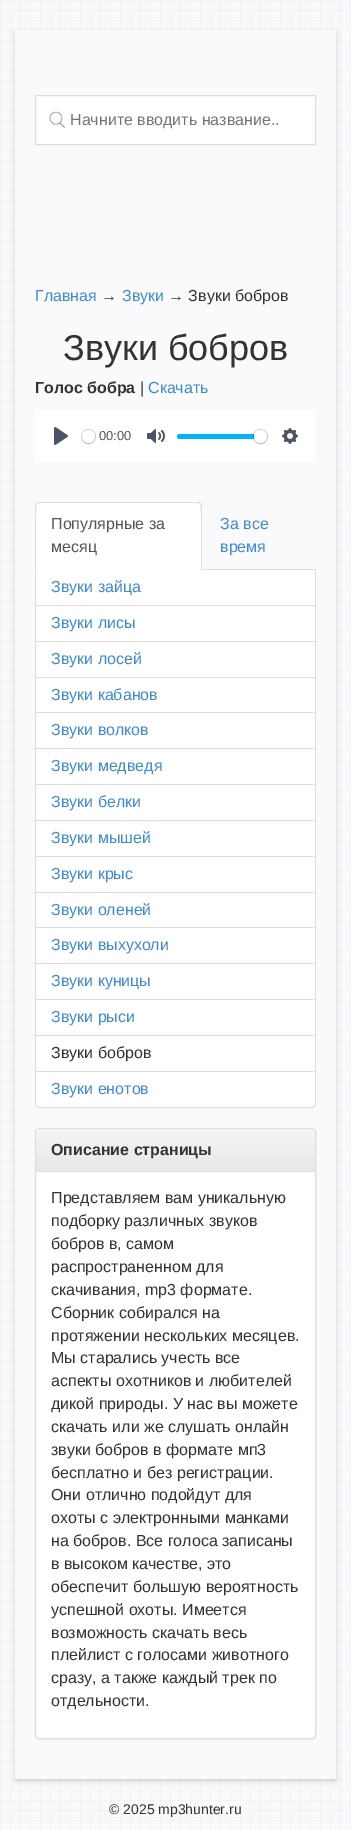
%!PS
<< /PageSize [351 1830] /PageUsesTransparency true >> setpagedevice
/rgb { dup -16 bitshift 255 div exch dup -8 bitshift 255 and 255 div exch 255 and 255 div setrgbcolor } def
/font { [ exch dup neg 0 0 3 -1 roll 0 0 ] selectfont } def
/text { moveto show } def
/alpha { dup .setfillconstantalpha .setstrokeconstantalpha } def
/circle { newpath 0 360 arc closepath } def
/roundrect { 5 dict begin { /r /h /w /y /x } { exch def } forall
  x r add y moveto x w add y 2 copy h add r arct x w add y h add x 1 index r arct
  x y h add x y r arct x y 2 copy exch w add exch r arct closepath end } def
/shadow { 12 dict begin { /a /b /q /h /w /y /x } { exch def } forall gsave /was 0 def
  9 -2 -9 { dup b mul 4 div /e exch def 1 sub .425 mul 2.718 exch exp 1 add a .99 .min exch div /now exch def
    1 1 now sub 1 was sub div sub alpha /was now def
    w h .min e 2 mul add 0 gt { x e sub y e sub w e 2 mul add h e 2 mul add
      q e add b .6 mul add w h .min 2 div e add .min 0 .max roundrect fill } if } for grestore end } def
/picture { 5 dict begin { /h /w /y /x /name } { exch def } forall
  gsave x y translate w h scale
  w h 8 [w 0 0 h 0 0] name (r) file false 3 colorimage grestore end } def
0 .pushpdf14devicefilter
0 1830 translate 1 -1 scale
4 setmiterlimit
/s1 { /LiberationSans-Regular 16 font 16#757575 rgb } def
/s2 { /LiberationSans-Regular 16 font 16#428BCA rgb } def
/s3 { /LiberationSans-Regular 16 font 16#333333 rgb } def
/s4 { /LiberationSans-Regular 36 font 16#333333 rgb } def
/s5 { /LiberationSans-Bold 16 font 16#333333 rgb } def
/s6 { /LiberationSans-Regular 13 font 16#4A5464 rgb } def
/s7 { /LiberationSans-Regular 16 font 16#555555 rgb } def
/s8 { /LiberationSans-Regular 14 font 16#333333 rgb } def
16#FFFFFF rgb
0 0 351 1830 rectfill
(pic1.raw) 0 0 351 1830 picture
16#646464 rgb
15 32 321 1749 0 3 0.3 shadow
16#FAFAFC rgb
15 30 321 1749 rectfill
16#FFFFFF rgb
35.5 95.5 moveto 315.5 95.5 lineto 315.5 144.5 lineto 35.5 144.5 lineto closepath gsave fill grestore
16#DDDDDD rgb
stroke
(pic2.raw) 49 111 16 17 picture
s1
(Начните вводить название..) 70 125 text
s2
(Главная) 35 301 text
s3
(→) 101 301 text
s2
(Звуки) 122 301 text
s3
(→ Звуки бобров) 168 301 text
s4
(Звуки бобров) 63 360 text
s5
(Голос бобра) 35 393 text
s3
(|) 140 393 text
s2
(Скачать) 148 393 text
16#FFFFFF rgb
35 410 281 52 rectfill
(pic3.raw) 54 427 14 18 picture
16#D3D4D5 rgb
88.5 436.5 7 circle stroke
16#23282F rgb
82 431 13 13 6.5 0.5 0.15 shadow
16#FFFFFF rgb
88.5 436.5 6.5 circle fill
s6
(00:00) 99 440 text
(pic4.raw) 147 429 18 14 picture
16#00B2FF rgb
177 434 90 5 2.5 roundrect fill
0.2 alpha
16#23282F rgb
260.5 436.5 7 circle stroke
1 alpha
254 431 13 13 6.5 0.5 0.15 shadow
16#FFFFFF rgb
260.5 436.5 6.5 circle fill
(pic5.raw) 282 428 16 16 picture
16#DDDDDD rgb
202 569 114 1 rectfill
16#FFFFFF rgb
39 502 moveto 198 502 lineto 200 502 202 504 202 506 curveto 202 570 lineto 35 570 lineto 35 506 lineto 35 504 37 502 39 502 curveto closepath fill
16#DDDDDD rgb
39 502 moveto 36 503 lineto 37 504 lineto 39 503 lineto 198 503 lineto 200 504 lineto 201 503 lineto 198 502 lineto closepath fill
202 570 moveto 202 506 lineto 201 503 lineto 200 504 lineto 202 505 201 562 201 569 curveto closepath fill
35 570 moveto 36 569 lineto 36 562 35 505 37 504 curveto 36 503 lineto 35 506 lineto closepath fill
s7
(Популярные за) 51 529 text
(месяц) 51 552 text
s2
(За все) 220 529 text
(время) 220 552 text
16#FFFFFF rgb
35 570 moveto 316 570 lineto 316 1104 lineto 316 1106 314 1108 312 1108 curveto 39 1108 lineto 37 1108 35 1106 35 1104 curveto closepath fill
16#DDDDDD rgb
35 570 moveto 316 570 lineto 316 1104 lineto 316 1106 314 1108 312 1108 curveto 39 1108 lineto 37 1108 35 1106 35 1104 curveto closepath 36 570 moveto 315 570 lineto 315 1104 lineto 315 1106 314 1107 312 1107 curveto 39 1107 lineto 37 1107 36 1106 36 1104 curveto closepath eofill
36 605 279 1 rectfill
s2
(Звуки зайца) 51 592 text
16#DDDDDD rgb
36 641 279 1 rectfill
s2
(Звуки лисы) 51 628 text
16#DDDDDD rgb
36 677 279 1 rectfill
s2
(Звуки лосей) 51 664 text
16#DDDDDD rgb
36 712 279 1 rectfill
s2
(Звуки кабанов) 51 700 text
16#DDDDDD rgb
36 748 279 1 rectfill
s2
(Звуки волков) 51 735 text
16#DDDDDD rgb
36 784 279 1 rectfill
s2
(Звуки медведя) 51 771 text
16#DDDDDD rgb
36 820 279 1 rectfill
s2
(Звуки белки) 51 807 text
16#DDDDDD rgb
36 856 279 1 rectfill
s2
(Звуки мышей) 51 843 text
16#DDDDDD rgb
36 892 279 1 rectfill
s2
(Звуки крыс) 51 879 text
16#DDDDDD rgb
36 927 279 1 rectfill
s2
(Звуки оленей) 51 915 text
16#DDDDDD rgb
36 963 279 1 rectfill
s2
(Звуки выхухоли) 51 950 text
16#DDDDDD rgb
36 999 279 1 rectfill
s2
(Звуки куницы) 51 986 text
16#DDDDDD rgb
36 1035 279 1 rectfill
s2
(Звуки рыси) 51 1022 text
16#DDDDDD rgb
36 1071 279 1 rectfill
s3
(Звуки бобров) 51 1058 text
s2
(Звуки енотов) 51 1094 text
16#000000 rgb
35 1129 281 611 4 1 0.05 shadow
16#FFFFFF rgb
35.5 1128.5 280 610 3.5 roundrect gsave fill grestore
16#DDDDDD rgb
stroke
gsave 39 1129 moveto 312 1129 lineto 313.5 1129 315 1130.5 315 1132 curveto 315 1171 lineto 36 1171 lineto 36 1132 lineto 36 1130.5 37.5 1129 39 1129 curveto closepath clip newpath
<< /ShadingType 2 /ColorSpace /DeviceRGB /Coords [176 1129 176 1171] /Extend [true true] /Function << /FunctionType 2 /Domain [0 1] /C0 [0.961 0.961 0.961] /C1 [0.91 0.91 0.91] /N 1 >> >> shfill grestore
36 1171 279 1 rectfill
s5
(Описание страницы) 51 1155 text
s3
(Представляем вам уникальную) 51 1203 text
(подборку различных звуков) 51 1226 text
(бобров в, самом) 51 1249 text
(распространенном для) 51 1272 text
(скачивания, mp3 формате.) 51 1295 text
(Сборник собирался на) 51 1318 text
(протяжении нескольких месяцев.) 51 1341 text
(Мы старались учесть все) 51 1363 text
(аспекты охотников и любителей) 51 1386 text
(дикой природы. У нас вы можете) 51 1409 text
(скачать или же слушать онлайн) 51 1432 text
(звуки бобров в формате мп3) 51 1455 text
(бесплатно и без регистрации.) 51 1478 text
(Они отлично подойдут для) 51 1500 text
(охоты с электронными манками) 51 1523 text
(на бобров. Все голоса записаны) 51 1546 text
(в высоком качестве, это) 51 1569 text
(обеспечит большую вероятность) 51 1592 text
(успешной охоты. Имеется) 51 1615 text
(возможность скачать весь) 51 1638 text
(плейлист с голосами животного) 51 1660 text
(сразу, а также каждый трек по) 51 1683 text
(отдельности.) 51 1706 text
s8
(© 2025 mp3hunter.ru) 109 1814 text
.poppdf14devicefilter showpage
